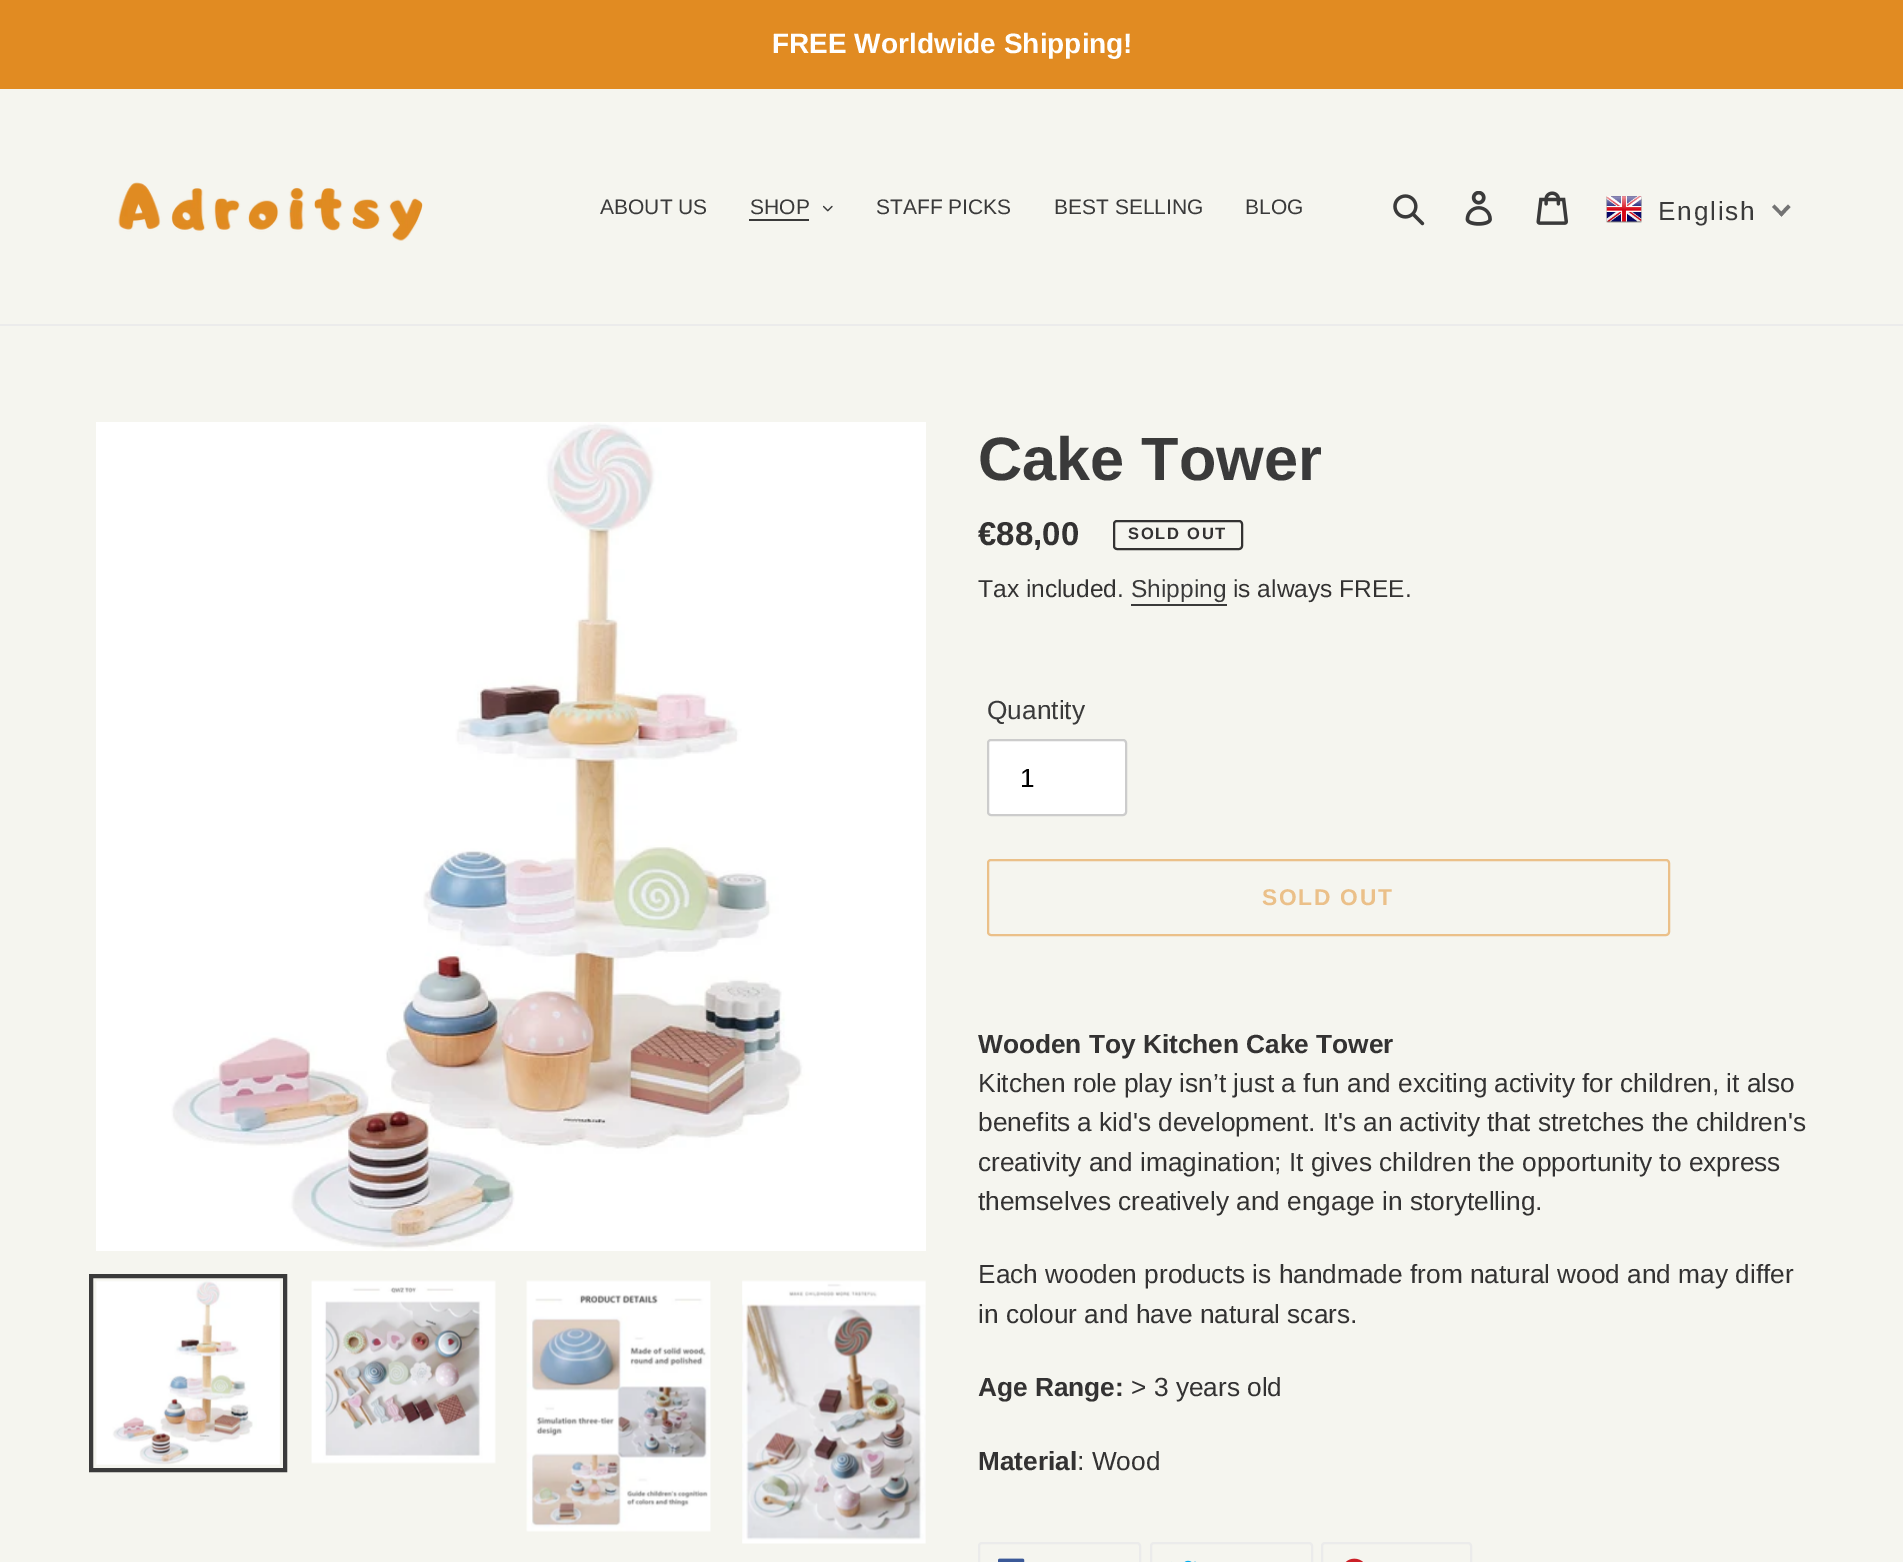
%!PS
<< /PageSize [1903 1562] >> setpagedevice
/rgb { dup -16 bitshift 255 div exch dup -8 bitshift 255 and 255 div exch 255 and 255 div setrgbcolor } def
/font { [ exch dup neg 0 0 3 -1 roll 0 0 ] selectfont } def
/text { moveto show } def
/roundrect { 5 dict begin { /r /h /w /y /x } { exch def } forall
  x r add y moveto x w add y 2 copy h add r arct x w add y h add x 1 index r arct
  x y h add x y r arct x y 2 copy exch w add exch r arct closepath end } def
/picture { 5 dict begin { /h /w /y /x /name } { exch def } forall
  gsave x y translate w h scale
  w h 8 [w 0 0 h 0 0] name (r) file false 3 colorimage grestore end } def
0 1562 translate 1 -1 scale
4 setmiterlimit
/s1 { /LiberationSans-Bold 28 font 16#FFFFFF rgb } def
/s2 { /LiberationSans-Regular 21 font 16#3A3A3A rgb } def
/s3 { /LiberationSans-Bold 61.25 font 16#3A3A3A rgb } def
/s4 { /LiberationSans-Bold 33 font 16#333232 rgb } def
/s5 { /LiberationSans-Regular 24.5 font 16#333232 rgb } def
/s6 { /LiberationSans-Regular 24.5 font 16#3A3A3A rgb } def
/s7 { /LiberationSans-Regular 26.25 font 16#3A3A3A rgb } def
/s8 { /LiberationSans-Regular 26.25 font 16#000000 rgb } def
/s9 { /LiberationSans-Bold 26.25 font 16#333232 rgb } def
/s10 { /LiberationSans-Regular 26.25 font 16#333232 rgb } def
16#F5F5EF rgb
0 0 1903 1562 rectfill
16#E18B22 rgb
0 0 1903 89 rectfill
s1
(FREE Worldwide Shipping!) 772 53 text
16#EBEBEB rgb
0 324 1903 2 rectfill
(pic1.raw) 118 182 305 59 picture
s2
(ABOUT US) 600 214 text
(SHOP) 750 214 text
749 219 60 2 rectfill
(pic2.raw) 823 205 10 7 picture
(STAFF PICKS) 876 214 text
(BEST SELLING) 1054 214 text
(BLOG) 1245 214 text
(pic3.raw) 1393 194 32 32 picture
(pic4.raw) 1465 191 27 35 picture
(pic5.raw) 1536 191 32 34 picture
(pic6.raw) 1606 196 36 27 picture
/LiberationSans-Regular 26.25 font
1658 220 moveto 1.75 0 (English) ashow
16#737373 rgb
1788 204.5 moveto 1790.5 207 lineto 1781.5 216.5 lineto 1779 214 lineto closepath fill
1774.5 204.5 moveto 1783.5 214 lineto 1781.5 216.5 lineto 1772 207 lineto closepath fill
(pic7.raw) 96 422 830 829 picture
16#3A3A3A rgb
4 setlinewidth
91 1276 194 194 rectstroke
(pic8.raw) 96 1280 184 185 picture
(pic9.raw) 311 1280 185 184 picture
(pic10.raw) 526 1280 185 252 picture
(pic11.raw) 742 1280 184 264 picture
s3
(Cake Tower) 978 480 text
s4
(€88,00) 978 545 text
2 setlinewidth
1114 521 128 28 3 roundrect stroke
/LiberationSans-Bold 16.5 font
1128 539 moveto 1.75 0 (SOLD OUT) ashow
s5
(Tax included.) 978 597 text
s6
(Shipping) 1131 597 text
1131 604 96 2 rectfill
s5
(is always FREE.) 1233 597 text
s7
(Quantity) 987 719 text
16#FFFFFF rgb
988 740 138 75 3 roundrect gsave fill grestore
16#CCCCCC rgb
stroke
s8
(1) 1020 787 text
16#EBC089 rgb
988 860 681 75 3 roundrect stroke
/LiberationSans-Bold 22.75 font
1262 905 moveto 1.75 0 (SOLD OUT) ashow
s9
(Wooden Toy Kitchen Cake Tower) 978 1053 text
s10
(Kitchen role play isn’t just a fun and exciting activity for children, it also) 978 1092 text
(benefits a kid's development. It's an activity that stretches the children's) 978 1131 text
(creativity and imagination; It gives children the opportunity to express) 978 1171 text
(themselves creatively and engage in storytelling.) 978 1210 text
(Each wooden products is handmade from natural wood and may differ) 978 1283 text
(in colour and have natural scars.) 978 1323 text
s9
(Age Range:) 978 1396 text
s10
(> 3 years old) 1131 1396 text
s9
(Material) 978 1470 text
s10
(: Wood) 1077 1470 text
16#EBEBEB rgb
979 1543 161 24 3 roundrect stroke
(pic12.raw) 998 1558 27 4 picture
1151 1543 161 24 3 roundrect stroke
(pic13.raw) 1171 1560 25 2 picture
1322 1543 149 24 3 roundrect stroke
(pic14.raw) 1345 1558 18 4 picture
showpage
